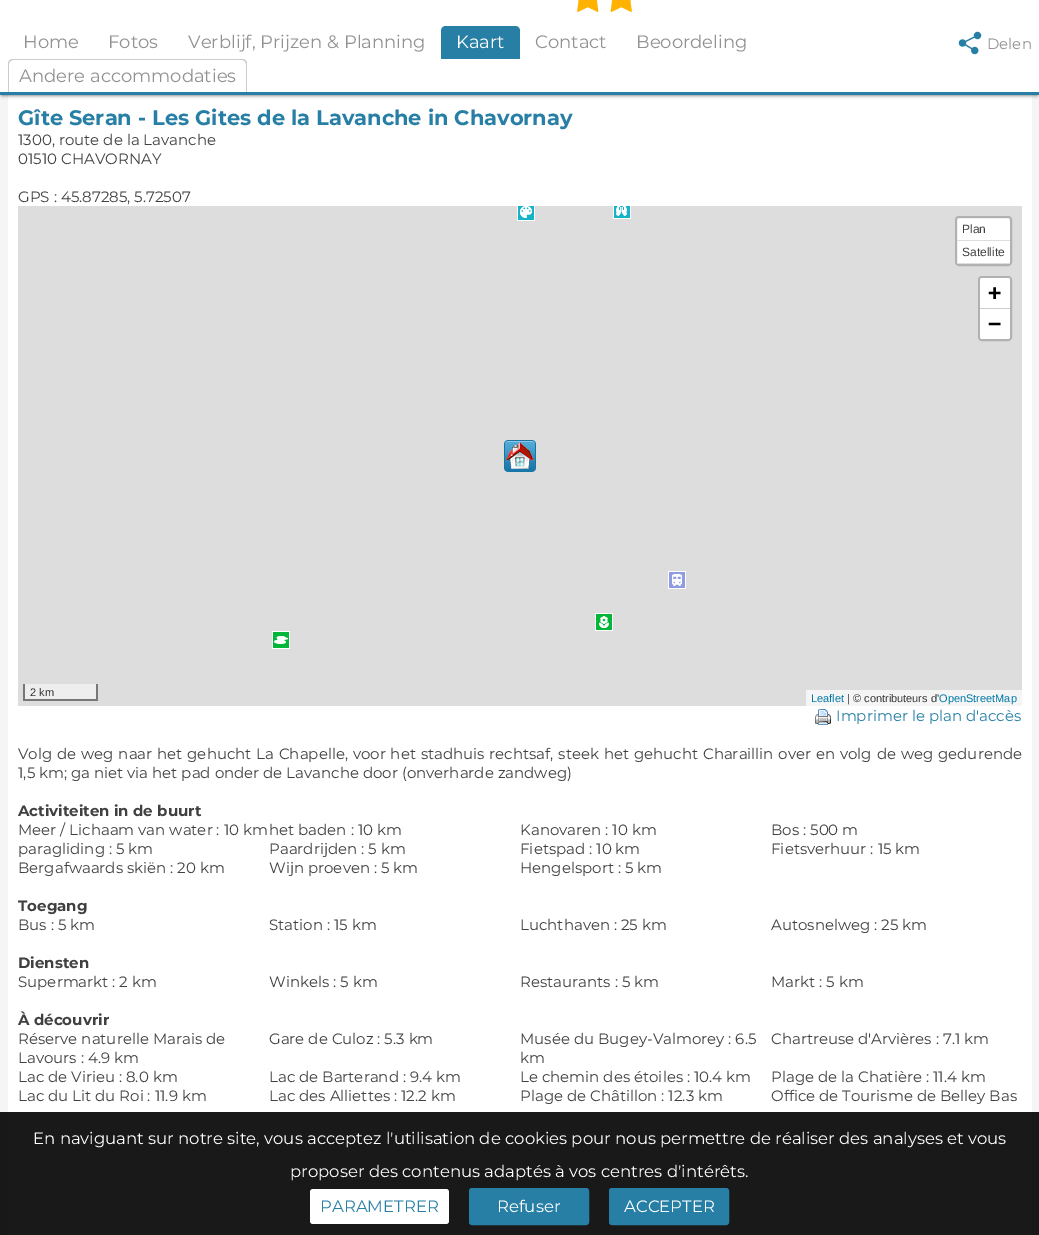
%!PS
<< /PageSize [1039 1235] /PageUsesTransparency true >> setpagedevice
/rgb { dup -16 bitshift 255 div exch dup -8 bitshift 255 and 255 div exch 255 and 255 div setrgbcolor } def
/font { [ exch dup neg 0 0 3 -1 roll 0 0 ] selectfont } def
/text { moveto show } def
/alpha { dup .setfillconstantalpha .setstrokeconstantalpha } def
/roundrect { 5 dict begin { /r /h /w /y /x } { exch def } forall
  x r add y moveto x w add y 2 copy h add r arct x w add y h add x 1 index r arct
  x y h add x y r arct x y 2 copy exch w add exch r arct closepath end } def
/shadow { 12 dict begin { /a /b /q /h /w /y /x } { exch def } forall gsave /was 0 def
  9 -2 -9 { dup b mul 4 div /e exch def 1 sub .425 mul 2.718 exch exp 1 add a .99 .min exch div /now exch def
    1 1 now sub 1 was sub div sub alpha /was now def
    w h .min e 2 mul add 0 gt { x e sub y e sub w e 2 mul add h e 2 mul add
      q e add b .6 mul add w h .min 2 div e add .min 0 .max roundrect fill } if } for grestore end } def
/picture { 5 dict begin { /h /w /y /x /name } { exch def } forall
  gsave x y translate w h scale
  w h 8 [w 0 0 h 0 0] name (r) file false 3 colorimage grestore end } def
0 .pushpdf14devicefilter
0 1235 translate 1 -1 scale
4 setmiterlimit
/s1 { /Montserrat-Regular 18 font 16#929292 rgb } def
/s2 { /Montserrat-Regular 18 font 16#FFFFFF rgb } def
/s3 { /Montserrat-Regular 15 font 16#929292 rgb } def
/s4 { /Montserrat-Bold 21 font 16#277FA5 rgb } def
/s5 { /Montserrat-Regular 15 font 16#404040 rgb } def
/s6 { /LiberationSans-Regular 12 font 16#404040 rgb } def
/s7 { /DejaVuSansMono-Bold 22 font 16#000000 rgb } def
/s8 { /LiberationSans-Regular 11 font 16#333333 rgb } def
/s9 { /LiberationSans-Regular 11 font 16#0078A8 rgb } def
/s10 { /Montserrat-Regular 15 font 16#277FA5 rgb } def
/s11 { /Montserrat-Bold 15 font 16#404040 rgb } def
/s12 { /Montserrat-Regular 16.5 font 16#FFFFFF rgb } def
/s13 { /Montserrat-Regular 16.5 font 16#277FA5 rgb } def
16#F5F5F5 rgb
0 0 1039 1235 rectfill
16#FFFFFF rgb
8 95 1024 1140 rectfill
16#4A4A4A rgb
2 30 1035 65 0 2 1 shadow
16#FFFFFF rgb
0 0 1039 92 rectfill
(pic1.raw) 577 0 55 12 picture
16#277FA5 rgb
0 92 1039 3 rectfill
s1
(Home) 23 48 text
(Fotos) 108 48 text
(Verblijf, Prijzen & Planning) 188 48 text
16#277FA5 rgb
446 26 moveto 515 26 lineto 518 26 520 28 520 31 curveto 520 59 lineto 441 59 lineto 441 31 lineto 441 28 443 26 446 26 curveto closepath fill
s2
(Kaart) 456 48 text
s1
(Contact) 535 48 text
(Beoordeling) 636 48 text
16#CCCCCC rgb
13 59 moveto 242 59 lineto 245 59 247 61 247 64 curveto 247 92 lineto 8 92 lineto 8 64 lineto 8 61 10 59 13 59 curveto closepath 13 60 moveto 242 60 lineto 244 60 246 62 246 64 curveto 246 92 lineto 9 92 lineto 9 64 lineto 9 62 11 60 13 60 curveto closepath eofill
s1
(Andere accommodaties) 19 82 text
(pic2.raw) 958 31 24 24 picture
s3
(Delen) 987 49 text
s4
(Gîte Seran - Les Gites de la Lavanche in Chavornay) 18 125 text
s5
(1300, route de la Lavanche) 18 145 text
(01510 CHAVORNAY) 18 164 text
(GPS : 45.87285, 5.72507) 18 202 text
16#DDDDDD rgb
18 206 1004 500 rectfill
(pic3.raw) 517 206 18 15 picture
(pic4.raw) 613 206 18 13 picture
(pic5.raw) 504 440 32 32 picture
(pic6.raw) 668 571 18 18 picture
(pic7.raw) 595 613 18 18 picture
(pic8.raw) 272 631 18 18 picture
16#FFFFFF rgb
957 218 53 46 2 roundrect fill
0.2 alpha
16#000000 rgb
2 setlinewidth
956 217 55 48 3 roundrect stroke
1 alpha
16#DDDDDD rgb
957 240 53 1 rectfill
s6
(Plan) 962 233 text
16#DDDDDD rgb
957 263 53 1 rectfill
s6
(Satellite) 962 256 text
16#B1B1B1 rgb
979 277 32 63 3 roundrect stroke
16#FFFFFF rgb
982 278 moveto 1008 278 lineto 1009 278 1010 279 1010 280 curveto 1010 309 lineto 980 309 lineto 980 280 lineto 980 279 981 278 982 278 curveto closepath fill
16#CCCCCC rgb
980 308 30 1 rectfill
s7
(+) 988 300 text
16#FFFFFF rgb
980 309 moveto 1010 309 lineto 1010 337 lineto 1010 338 1009 339 1008 339 curveto 982 339 lineto 981 339 980 338 980 337 curveto closepath fill
s7
(−) 988 331 text
16#EEEEEE rgb
25 684 71 15 rectfill
16#777777 rgb
96 684 2 17 rectfill
23 699 75 2 rectfill
23 684 2 17 rectfill
s8
(2 km) 30 696 text
16#F5F5F5 rgb
806 690 216 16 rectfill
s9
(Leaflet) 811 702 text
s8
(| © contributeurs d') 847 702 text
s9
(OpenStreetMap) 939 702 text
(pic9.raw) 815 709 16 16 picture
s10
(Imprimer le plan d'accès) 836 721 text
16#404040 rgb
18 759 moveto 0.9 0 32 (Volg de weg naar het gehucht La Chapelle, voor het stadhuis rechtsaf, steek het gehucht Charaillin over en volg de weg gedurende) widthshow
(1,5 km; ga niet via het pad onder de Lavanche door \(onverharde zandweg\)) 18 778 text
s11
(Activiteiten in de buurt) 18 816 text
s5
(Meer / Lichaam van water : 10 km) 18 835 text
(het baden : 10 km) 269 835 text
(Kanovaren : 10 km) 520 835 text
(Bos : 500 m) 771 835 text
(paragliding : 5 km) 18 854 text
(Paardrijden : 5 km) 269 854 text
(Fietspad : 10 km) 520 854 text
(Fietsverhuur : 15 km) 771 854 text
(Bergafwaards skiën : 20 km) 18 873 text
(Wijn proeven : 5 km) 269 873 text
(Hengelsport : 5 km) 520 873 text
s11
(Toegang) 18 911 text
s5
(Bus : 5 km) 18 930 text
(Station : 15 km) 269 930 text
(Luchthaven : 25 km) 520 930 text
(Autosnelweg : 25 km) 771 930 text
s11
(Diensten) 18 968 text
s5
(Supermarkt : 2 km) 18 987 text
(Winkels : 5 km) 269 987 text
(Restaurants : 5 km) 520 987 text
(Markt : 5 km) 771 987 text
s11
(À découvrir) 18 1025 text
s5
(Réserve naturelle Marais de) 18 1044 text
(Lavours : 4.9 km) 18 1063 text
(Gare de Culoz : 5.3 km) 269 1044 text
(Musée du Bugey-Valmorey : 6.5) 520 1044 text
(km) 520 1063 text
(Chartreuse d'Arvières : 7.1 km) 771 1044 text
(Lac de Virieu : 8.0 km) 18 1082 text
(Lac de Barterand : 9.4 km) 269 1082 text
(Le chemin des étoiles : 10.4 km) 520 1082 text
(Plage de la Chatière : 11.4 km) 771 1082 text
(Lac du Lit du Roi : 11.9 km) 18 1101 text
(Lac des Alliettes : 12.2 km) 269 1101 text
(Plage de Châtillon : 12.3 km) 520 1101 text
(Office de Tourisme de Belley Bas) 771 1101 text
0.9 alpha
16#000000 rgb
0 1112 1039 123 rectfill
1 alpha
s12
(En naviguant sur notre site, vous acceptez l'utilisation de cookies pour nous permettre de réaliser des analyses et vous) 33 1144 text
(proposer des contenus adaptés à vos centres d'intérêts.) 290 1177 text
310 1189 139 35 3 roundrect fill
s13
(PARAMETRER) 320 1212 text
469.5 1188.5 119 36 2.5 roundrect gsave fill grestore
1 setlinewidth
stroke
s12
(Refuser) 497 1212 text
16#277FA5 rgb
609.5 1188.5 119 36 2.5 roundrect gsave fill grestore
stroke
s12
(ACCEPTER) 624 1212 text
.poppdf14devicefilter showpage
